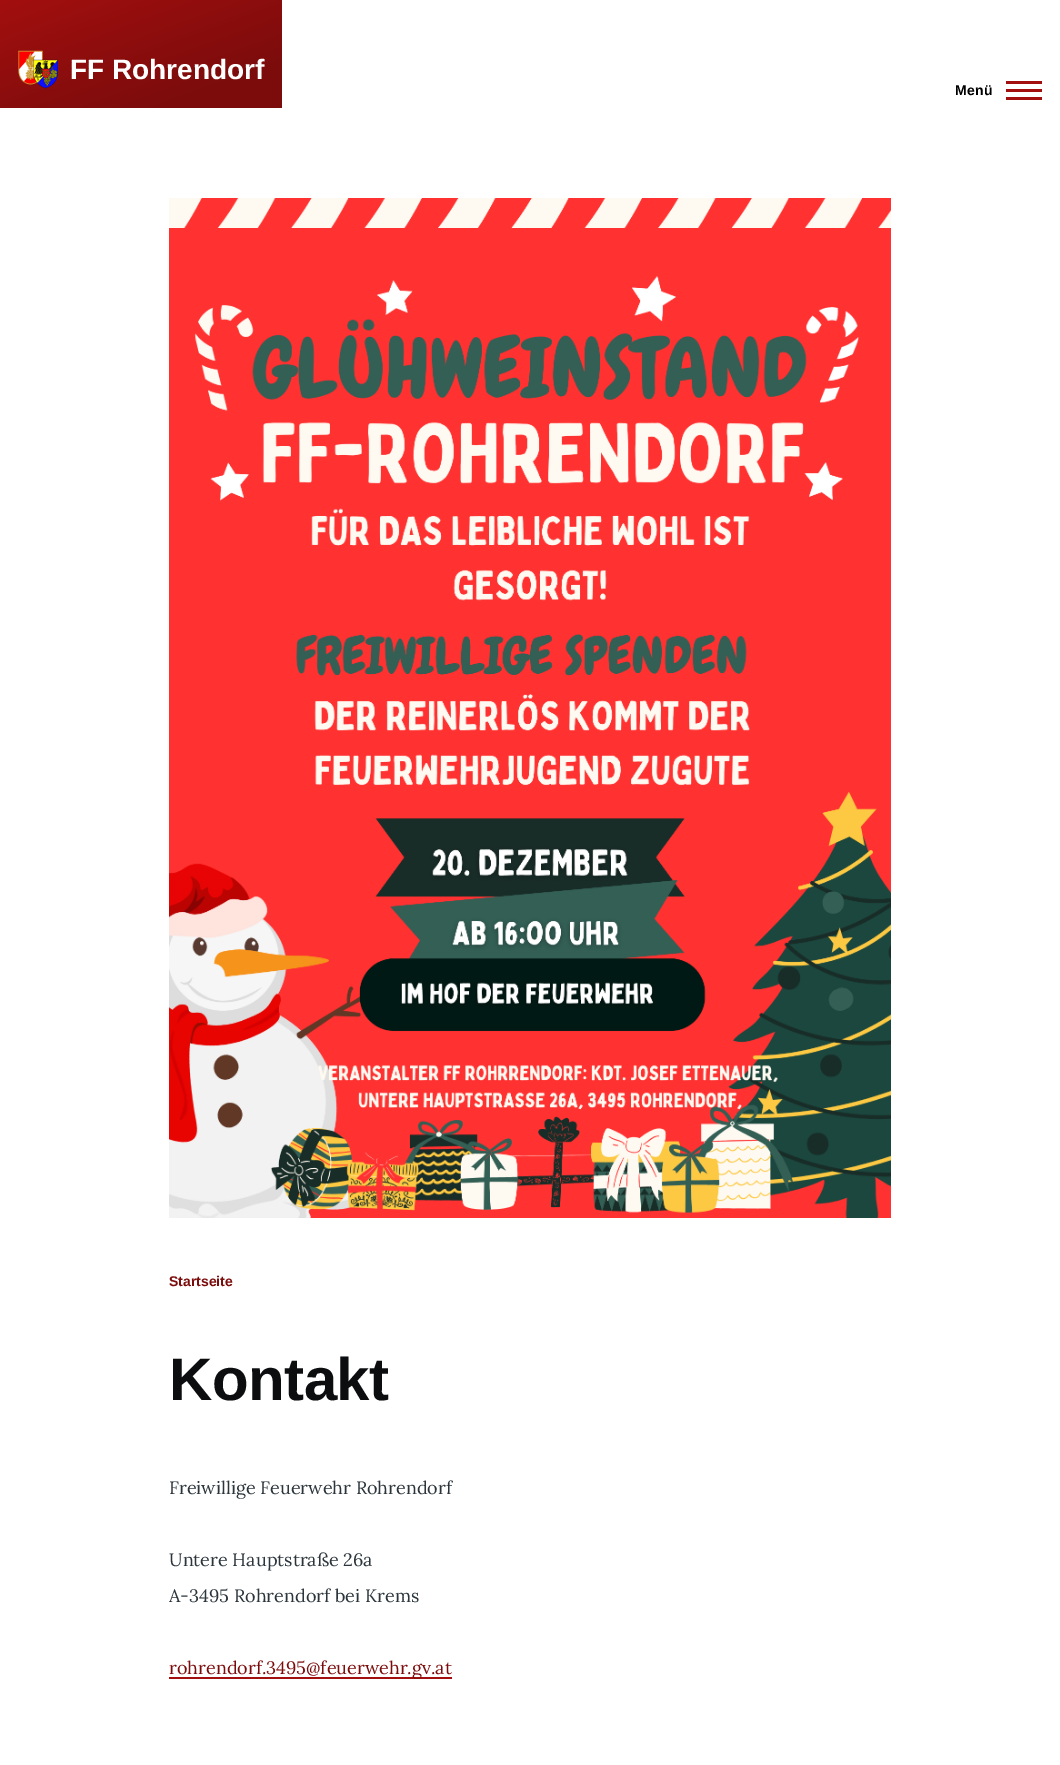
%!PS
<< /PageSize [1060 1765] >> setpagedevice
/rgb { dup -16 bitshift 255 div exch dup -8 bitshift 255 and 255 div exch 255 and 255 div setrgbcolor } def
/font { [ exch dup neg 0 0 3 -1 roll 0 0 ] selectfont } def
/text { moveto show } def
/picture { 5 dict begin { /h /w /y /x /name } { exch def } forall
  gsave x y translate w h scale
  w h 8 [w 0 0 h 0 0] name (r) file false 3 colorimage grestore end } def
0 1765 translate 1 -1 scale
4 setmiterlimit
/s1 { /LiberationSans-Bold 28 font 16#FFFFFF rgb } def
/s2 { /LiberationSans-Bold 14 font 16#7C0C0C rgb } def
/s3 { /Lora-Regular 18 font 16#2B353B rgb } def
/s4 { /Lora-Regular 18 font 16#7C0C0C rgb } def
16#FFFFFF rgb
0 0 1060 1765 rectfill
gsave 0 0 moveto 282 0 lineto 282 108 lineto 0 108 lineto closepath clip newpath
<< /ShadingType 2 /ColorSpace /DeviceRGB /Coords [107 -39 175 147] /Extend [true true] /Function << /FunctionType 3 /Domain [0 1] /Functions [<< /FunctionType 2 /Domain [0 1] /C0 [0.639 0.059 0.059] /C1 [0.486 0.047 0.047] /N 1 >> << /FunctionType 2 /Domain [0 1] /C0 [0.486 0.047 0.047] /C1 [0.486 0.047 0.047] /N 1 >>] /Bounds [0.79] /Encode [0 1 0 1] >> >> shfill grestore
(pic1.raw) 18 50 40 39 picture
s1
(FF Rohrendorf) 70 79 text
/LiberationSans-Bold 14 font
16#000000 rgb
955 95 moveto 0.5 0 (Menü) ashow
16#A30F0F rgb
1006 89 36 3 rectfill
1006 81 36 3 rectfill
1006 97 36 3 rectfill
(pic2.raw) 169 198 722 1020 picture
s2
(Startseite) 169 1286 text
/LiberationSans-Bold 60 font
16#0B0D0F rgb
169 1400 moveto -0.5 0 (Kontakt) ashow
s3
(Freiwillige Feuerwehr Rohrendorf) 169 1494 text
(Untere Hauptstraße 26a) 169 1566 text
(A-3495 Rohrendorf bei Krems) 169 1602 text
16#A30F0F rgb
169 1677 283 2 rectfill
s4
(rohrendorf.3495@feuerwehr.gv.at) 169 1674 text
showpage
